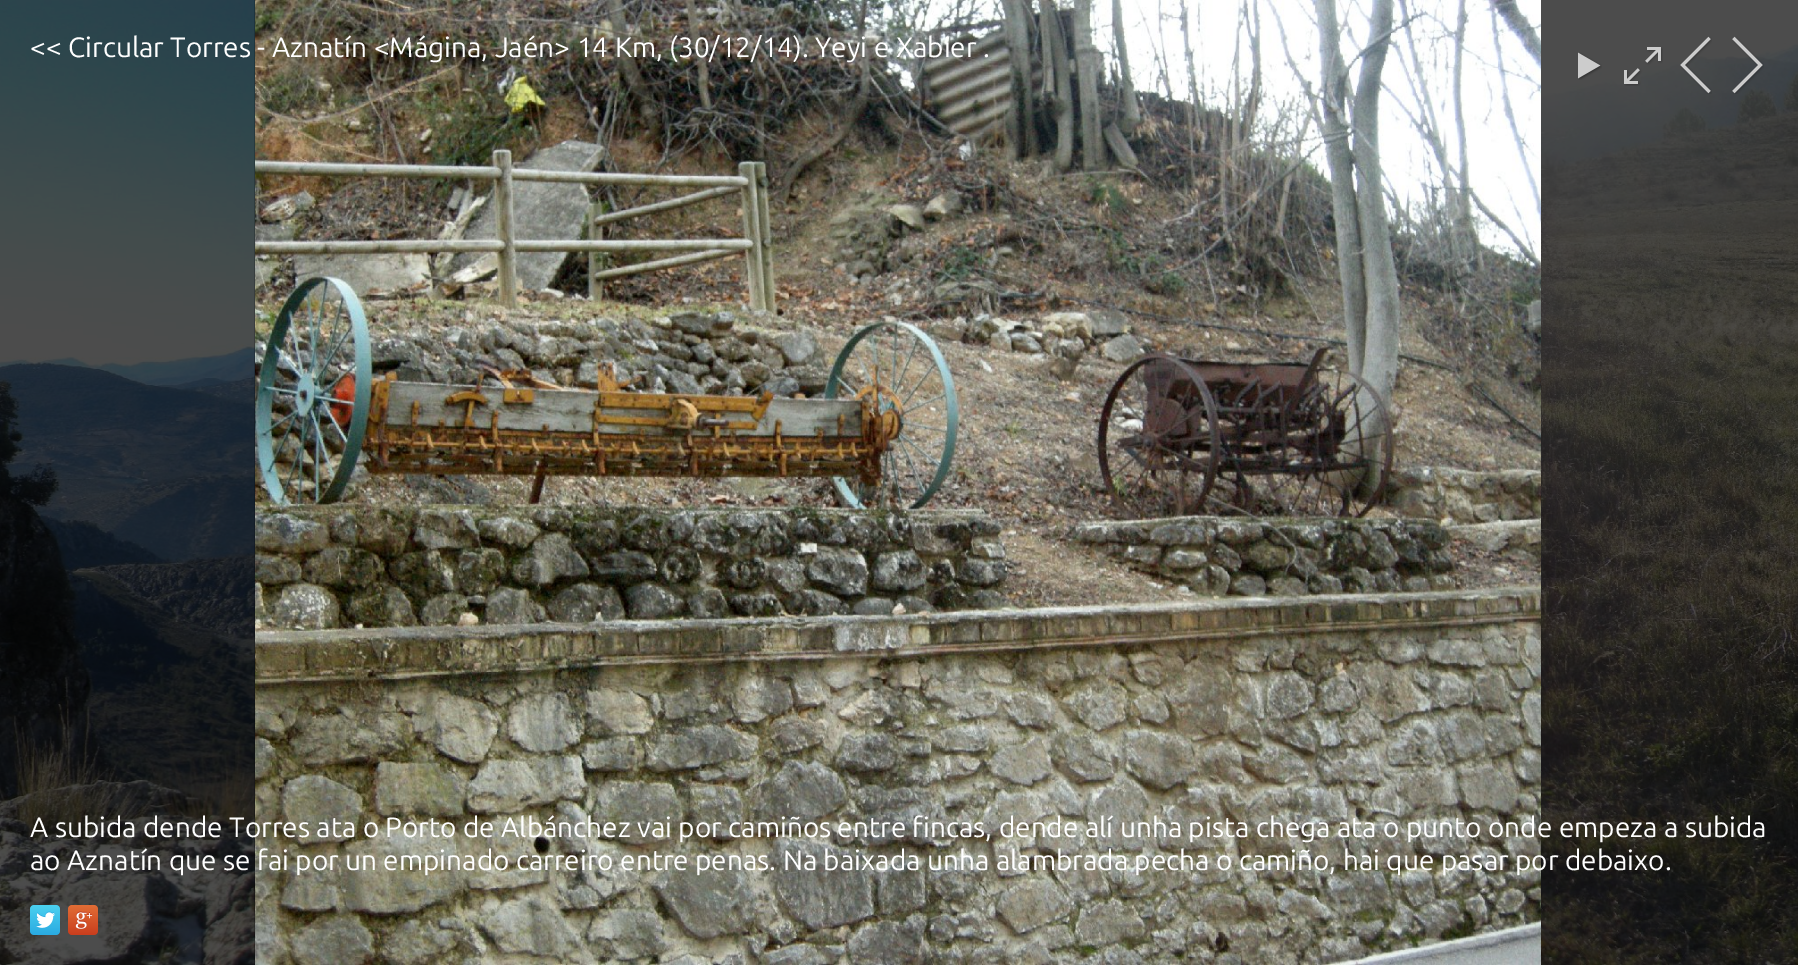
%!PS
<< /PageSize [1798 965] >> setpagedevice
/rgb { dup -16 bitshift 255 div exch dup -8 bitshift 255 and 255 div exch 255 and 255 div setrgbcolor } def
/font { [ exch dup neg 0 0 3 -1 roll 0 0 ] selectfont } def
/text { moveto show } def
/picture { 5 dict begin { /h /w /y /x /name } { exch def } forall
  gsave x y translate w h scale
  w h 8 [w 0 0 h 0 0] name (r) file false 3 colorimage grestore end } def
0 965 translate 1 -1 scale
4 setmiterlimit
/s1 { /Ubuntu-Regular 28 font 16#FFFFFF rgb } def
16#000000 rgb
0 0 1798 965 rectfill
(pic1.raw) 0 0 255 965 picture
(pic2.raw) 255 0 1286 965 picture
(pic3.raw) 1541 0 257 965 picture
s1
(<< Circular Torres - Aznatín <Mágina, Jaén> 14 Km, \(30/12/14\). Yeyi e Xabier .) 30 57 text
(pic4.raw) 1578 52 24 28 picture
(pic5.raw) 1624 47 39 39 picture
(pic6.raw) 1680 36 32 58 picture
(pic7.raw) 1732 36 32 58 picture
(A subida dende Torres ata o Porto de Albánchez vai por camiños entre fincas, dende alí unha pista chega ata o punto onde empeza a subida) 30 837 text
(ao Aznatín que se fai por un empinado carreiro entre penas. Na baixada unha alambrada pecha o camiño, hai que pasar por debaixo.) 30 870 text
(pic8.raw) 30 905 30 30 picture
(pic9.raw) 68 905 30 30 picture
showpage
